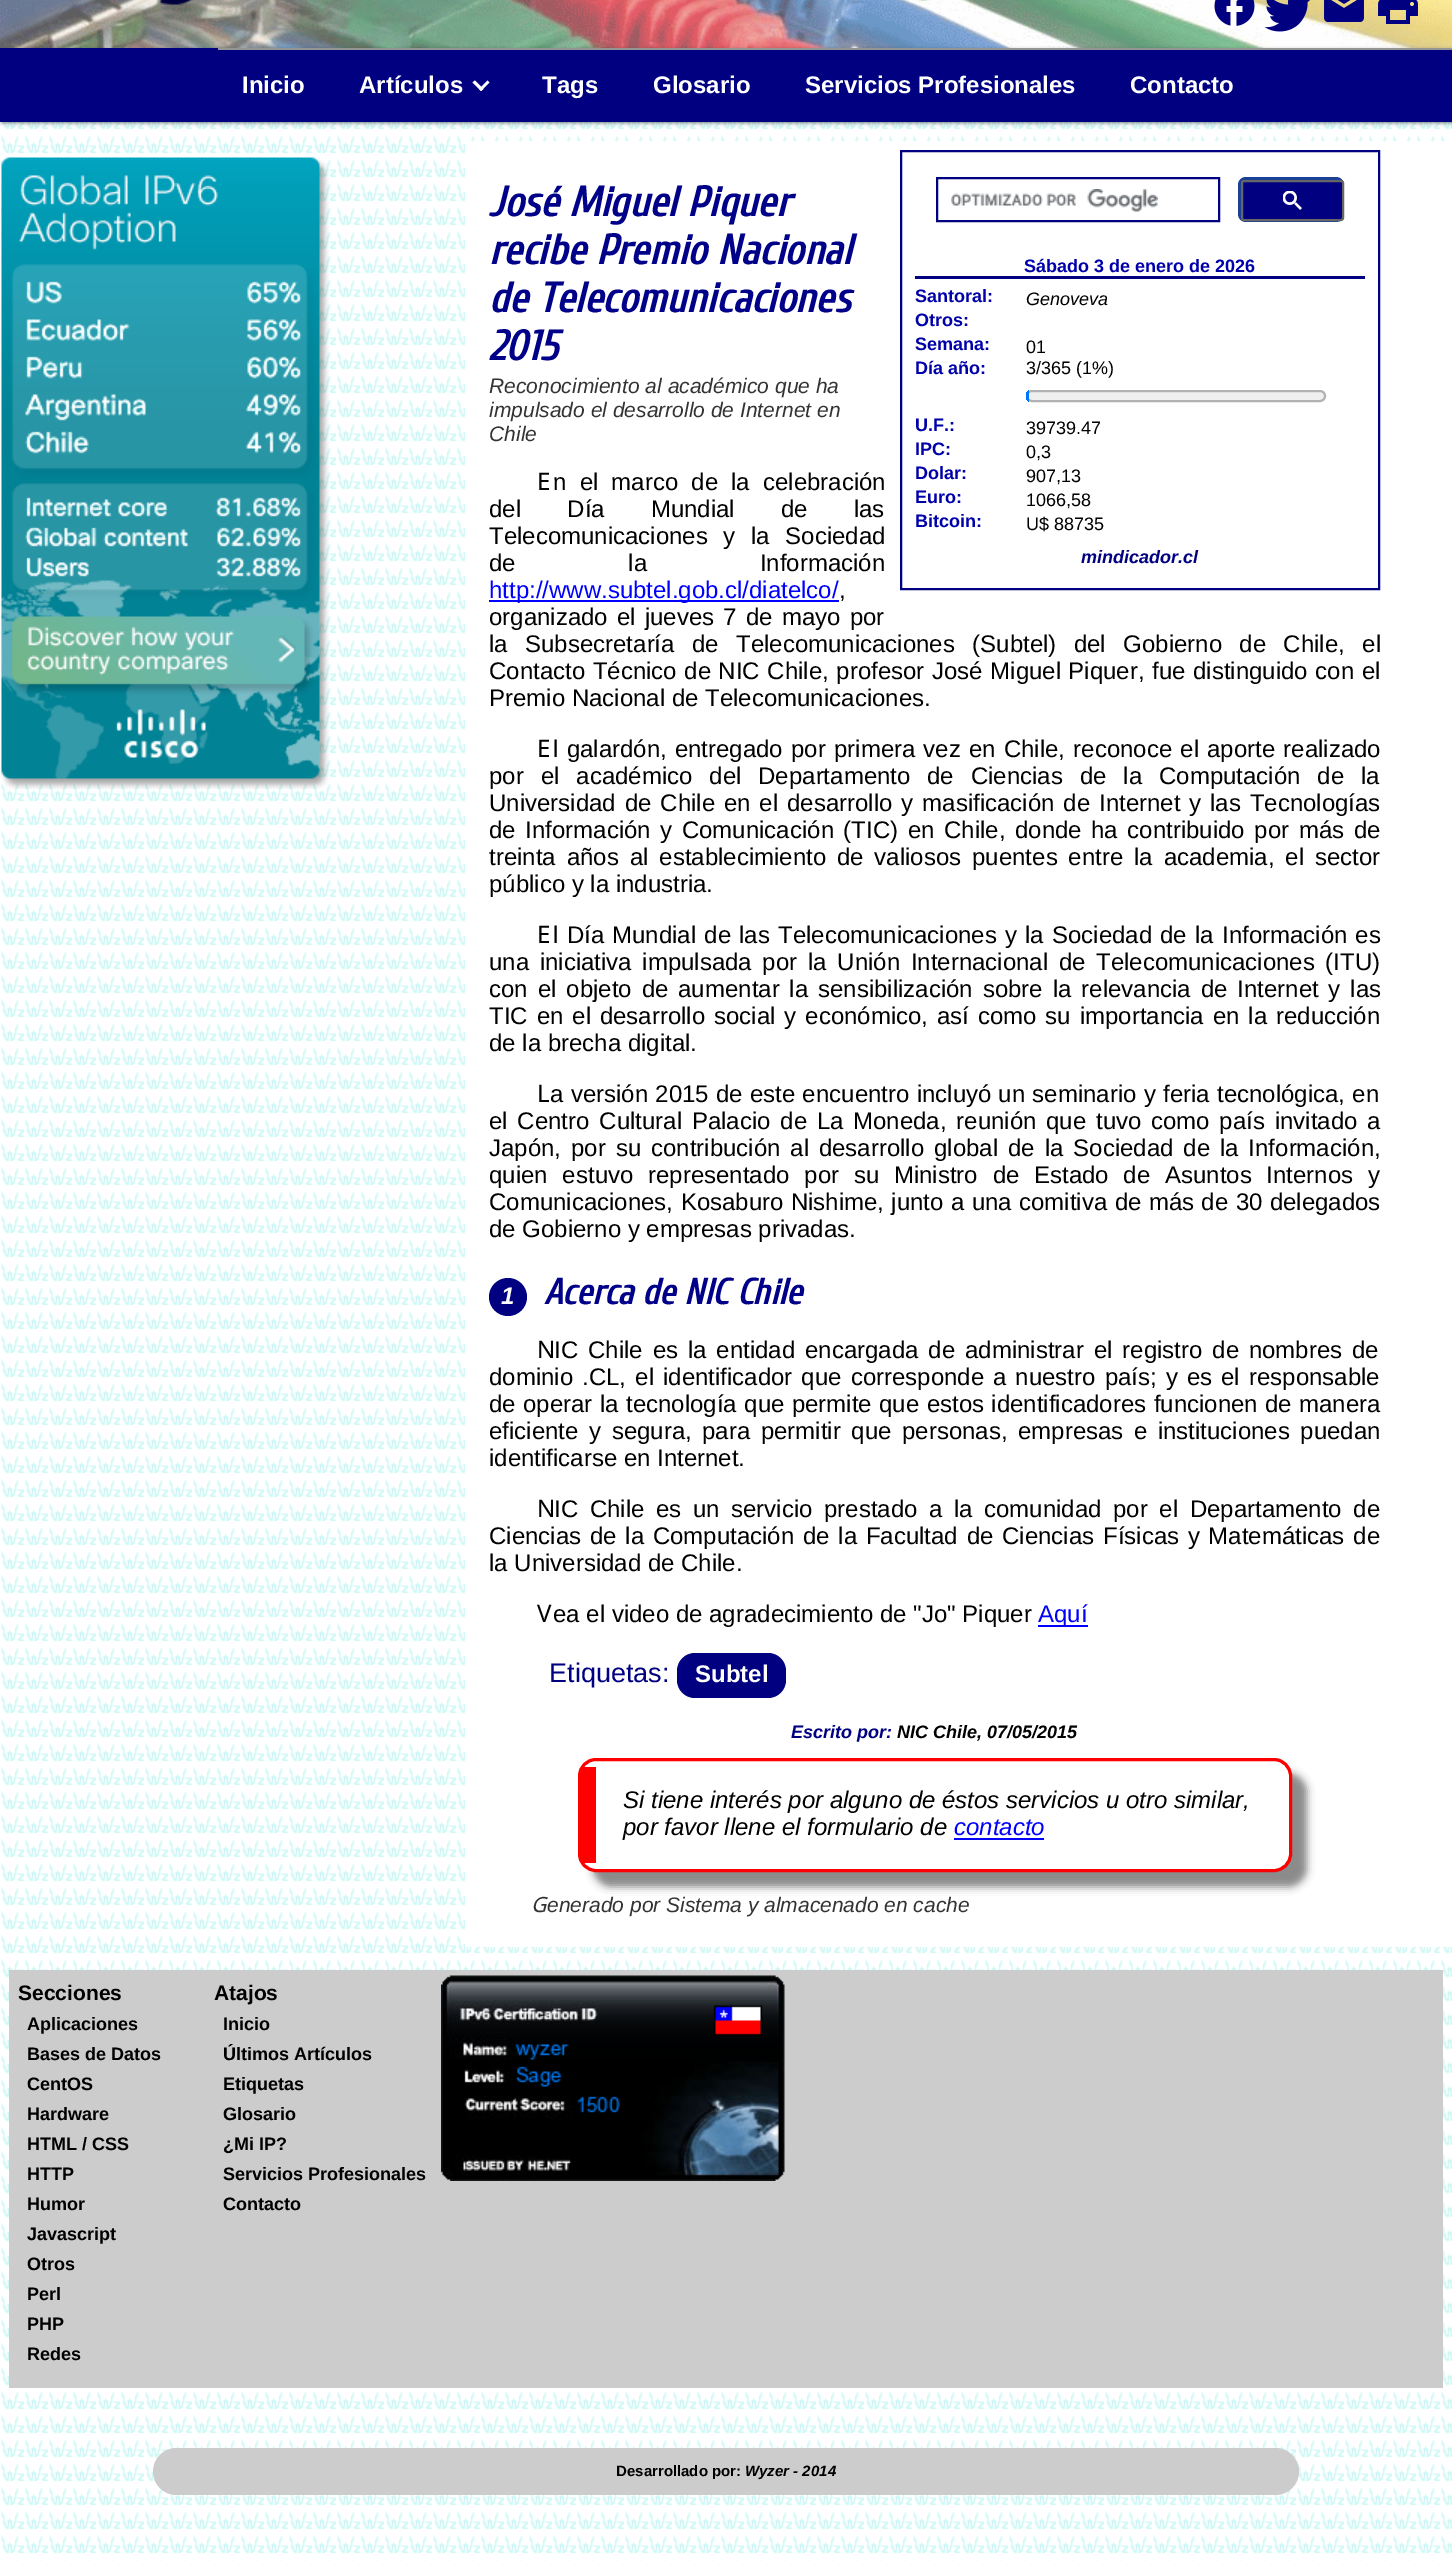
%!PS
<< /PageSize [1452 2561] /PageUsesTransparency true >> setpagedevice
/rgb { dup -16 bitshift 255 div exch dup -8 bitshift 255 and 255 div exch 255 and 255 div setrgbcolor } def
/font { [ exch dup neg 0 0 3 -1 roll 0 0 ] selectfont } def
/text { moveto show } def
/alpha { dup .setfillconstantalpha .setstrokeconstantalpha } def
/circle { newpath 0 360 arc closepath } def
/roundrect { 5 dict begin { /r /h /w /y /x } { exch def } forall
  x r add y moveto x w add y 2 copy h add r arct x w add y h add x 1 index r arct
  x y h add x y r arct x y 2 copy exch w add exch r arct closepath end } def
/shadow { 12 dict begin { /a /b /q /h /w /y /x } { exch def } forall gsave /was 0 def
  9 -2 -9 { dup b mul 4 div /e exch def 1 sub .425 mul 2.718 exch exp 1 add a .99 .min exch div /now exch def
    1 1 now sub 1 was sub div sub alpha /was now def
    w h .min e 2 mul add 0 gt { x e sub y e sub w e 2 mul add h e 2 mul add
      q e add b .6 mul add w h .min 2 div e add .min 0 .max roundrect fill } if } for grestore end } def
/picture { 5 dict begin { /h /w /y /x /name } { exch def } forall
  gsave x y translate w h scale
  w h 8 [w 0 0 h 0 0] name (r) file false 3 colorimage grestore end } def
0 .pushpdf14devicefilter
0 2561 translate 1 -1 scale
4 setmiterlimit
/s1 { /LiberationSans-Bold 24 font 16#FFFFFF rgb } def
/s2 { /Cuprum-BoldItalic 42 font 16#000088 rgb } def
/s3 { /LiberationSans-Bold 18 font 16#0000AA rgb } def
/s4 { /LiberationSans-Italic 18 font 16#000000 rgb } def
/s5 { /LiberationSans-Regular 18 font 16#000000 rgb } def
/s6 { /LiberationSans-BoldItalic 18 font 16#000080 rgb } def
/s7 { /LiberationSans-Italic 21 font 16#333333 rgb } def
/s8 { /NotoSans-Regular 24 font 16#000000 rgb } def
/s9 { /LiberationSans-Regular 24 font 16#0000FF rgb } def
/s10 { /LiberationSans-Regular 24 font 16#000000 rgb } def
/s11 { /LiberationSans-BoldItalic 24 font 16#FFFFFF rgb } def
/s12 { /Cuprum-BoldItalic 36 font 16#000088 rgb } def
/s13 { /LiberationSans-Regular 27 font 16#000080 rgb } def
/s14 { /LiberationSans-BoldItalic 18 font 16#000000 rgb } def
/s15 { /LiberationSans-Italic 24 font 16#000000 rgb } def
/s16 { /LiberationSans-Italic 24 font 16#0000FF rgb } def
/s17 { /NotoSans-Italic 21 font 16#333333 rgb } def
/s18 { /LiberationSans-Bold 21 font 16#000000 rgb } def
/s19 { /LiberationSans-Bold 18 font 16#000000 rgb } def
/s20 { /LiberationSans-Bold 15 font 16#000000 rgb } def
/s21 { /LiberationSans-BoldItalic 15 font 16#000000 rgb } def
16#FFFFFF rgb
0 0 1452 2561 rectfill
(pic1.raw) 0 122 1452 2439 picture
(pic2.raw) 0 0 1452 48 picture
(pic3.raw) 160 0 33 5 picture
(pic4.raw) 1214 0 41 26 picture
(pic5.raw) 1264 0 46 32 picture
(pic6.raw) 1324 0 40 22 picture
(pic7.raw) 1378 0 40 24 picture
16#000000 rgb
2 50 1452 73 0 2 0.5 shadow
16#000080 rgb
0 48 1452 74 rectfill
16#959595 rgb
218 48 1234 2 rectfill
s1
(Inicio) 242 93 text
(Artículos) 359 93 text
487.5 80.5 moveto 489.5 82.5 lineto 481 91 lineto 479 89 lineto closepath fill
475 80.5 moveto 483.5 89 lineto 481 91 lineto 472.5 82.5 lineto closepath fill
(Tags) 542 93 text
(Glosario) 653 93 text
(Servicios Profesionales) 805 93 text
(Contacto) 1130 93 text
(pic8.raw) 1 157 328 632 picture
465 141 987 1806 rectfill
s2
(José Miguel Piquer) 489 216 text
(recibe Premio Nacional) 489 264 text
(de Telecomunicaciones) 489 312 text
(2015) 489 360 text
16#000080 rgb
2 setlinewidth
901 151 478 438 rectstroke
937 178 282 43 rectstroke
(pic9.raw) 951 189 207 23 picture
16#1A4195 rgb
1238 177 106 45 8 roundrect fill
16#000080 rgb
1242 181 101 39 2 roundrect gsave fill grestore
16#666666 rgb
stroke
(pic10.raw) 1283 191 19 19 picture
16#000080 rgb
915 276 450 3 rectfill
s3
(Sábado 3 de enero de 2026) 1024 272 text
(Santoral:) 915 302 text
s4
(Genoveva) 1026 305 text
s3
(Otros:) 915 326 text
(Semana:) 915 350 text
s5
(01) 1026 353 text
s3
(Día año:) 915 374 text
s5
(3/365 \(1%\)) 1026 374 text
16#EFEFEF rgb
1027 391 298 10 5 roundrect gsave fill grestore
16#B2B2B2 rgb
stroke
gsave
1026 390 300 12 6 roundrect clip newpath
16#0075FF rgb
1026 390 3 12 rectfill
grestore
s3
(U.F.:) 915 431 text
s5
(39739.47) 1026 434 text
s3
(IPC:) 915 455 text
s5
(0,3) 1026 458 text
s3
(Dolar:) 915 479 text
s5
(907,13) 1026 482 text
s3
(Euro:) 915 503 text
s5
(1066,58) 1026 506 text
s3
(Bitcoin:) 915 527 text
s5
(U$ 88735) 1026 530 text
s6
(mindicador.cl) 1081 563 text
s7
(Reconocimiento al académico que ha) 489 393 text
(impulsado el desarrollo de Internet en) 489 417 text
(Chile) 489 441 text
s8
(E) 537 490 text
/LiberationSans-Regular 24 font
553 490 moveto 6.5 0 32 (n el marco de la celebración) widthshow
489 517 moveto 39.5 0 32 (del Día Mundial de las) widthshow
489 544 moveto 9 0 32 (Telecomunicaciones y la Sociedad) widthshow
489 571 moveto 106 0 32 (de la Información) widthshow
16#0000FF rgb
489 600 350 2 rectfill
(http://www.subtel.gob.cl/diatelco/) 489 598 text
s10
(,) 839 598 text
489 625 moveto 2.5 0 32 (organizado el jueves 7 de mayo por) widthshow
489 652 moveto 10.75 0 32 (la Subsecretaría de Telecomunicaciones \(Subtel\) del Gobierno de Chile, el) widthshow
489 679 moveto 0.9 0 32 (Contacto Técnico de NIC Chile, profesor José Miguel Piquer, fue distinguido con el) widthshow
(Premio Nacional de Telecomunicaciones.) 489 706 text
s8
(E) 537 757 text
/LiberationSans-Regular 24 font
553 757 moveto 1.5 0 32 (l galardón, entregado por primera vez en Chile, reconoce el aporte realizado) widthshow
489 784 moveto 10.25 0 32 (por el académico del Departamento de Ciencias de la Computación de la) widthshow
489 811 moveto 2.25 0 32 (Universidad de Chile en el desarrollo y masificación de Internet y las Tecnologías) widthshow
489 838 moveto 2.9 0 32 (de Información y Comunicación \(TIC\) en Chile, donde ha contribuido por más de) widthshow
489 865 moveto 4.25 0 32 (treinta años al establecimiento de valiosos puentes entre la academia, el sector) widthshow
(público y la industria.) 489 892 text
s8
(E) 537 943 text
/LiberationSans-Regular 24 font
553 943 moveto 1.5 0 32 (l Día Mundial de las Telecomunicaciones y la Sociedad de la Información es) widthshow
489 970 moveto 4 0 32 (una iniciativa impulsada por la Unión Internacional de Telecomunicaciones \(ITU\)) widthshow
489 997 moveto 3.25 0 32 (con el objeto de aumentar la sensibilización sobre la relevancia de Internet y las) widthshow
489 1024 moveto 2.25 0 32 (TIC en el desarrollo social y económico, así como su importancia en la reducción) widthshow
(de la brecha digital.) 489 1051 text
s8
(L) 537 1102 text
/LiberationSans-Regular 24 font
550 1102 moveto 0.6 0 32 (a versión 2015 de este encuentro incluyó un seminario y feria tecnológica, en) widthshow
489 1129 moveto 3.1 0 32 (el Centro Cultural Palacio de La Moneda, reunión que tuvo como país invitado a) widthshow
489 1156 moveto 3.25 0 32 (Japón, por su contribución al desarrollo global de la Sociedad de la Información,) widthshow
489 1183 moveto 8.1 0 32 (quien estuvo representado por su Ministro de Estado de Asuntos Internos y) widthshow
489 1210 moveto 0.75 0 32 (Comunicaciones, Kosaburo Nishime, junto a una comitiva de más de 30 delegados) widthshow
(de Gobierno y empresas privadas.) 489 1237 text
16#000080 rgb
508 1297 19 circle fill
s11
(1) 501 1304 text
s12
(Acerca de NIC Chile) 544 1304 text
s8
(N) 537 1358 text
/LiberationSans-Regular 24 font
554 1358 moveto 3.25 0 32 (IC Chile es la entidad encargada de administrar el registro de nombres de) widthshow
489 1385 moveto 2.4 0 32 (dominio .CL, el identificador que corresponde a nuestro país; y es el responsable) widthshow
489 1412 moveto 0.75 0 32 (de operar la tecnología que permite que estos identificadores funcionen de manera) widthshow
489 1439 moveto 3.9 0 32 (eficiente y segura, para permitir que personas, empresas e instituciones puedan) widthshow
(identificarse en Internet.) 489 1466 text
s8
(N) 537 1517 text
/LiberationSans-Regular 24 font
554 1517 moveto 4.9 0 32 (IC Chile es un servicio prestado a la comunidad por el Departamento de) widthshow
489 1544 moveto 2.1 0 32 (Ciencias de la Computación de la Facultad de Ciencias Físicas y Matemáticas de) widthshow
(la Universidad de Chile.) 489 1571 text
s8
(V) 537 1622 text
s10
(ea el video de agradecimiento de "Jo" Piquer) 553 1622 text
16#0000FF rgb
1038 1625 50 2 rectfill
(Aquí) 1038 1622 text
s13
(Etiquetas:) 549 1682 text
677 1653 109 45 18 roundrect fill
s1
(Subtel) 695 1682 text
s6
(Escrito por:) 791 1738 text
s14
(NIC Chile, 07/05/2015) 897 1738 text
gsave
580 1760 moveto 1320 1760 lineto 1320 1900 lineto 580 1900 lineto closepath 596 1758 moveto 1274 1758 lineto 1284 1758 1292 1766 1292 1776 curveto 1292 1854 lineto 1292 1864 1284 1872 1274 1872 curveto 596 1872 lineto 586 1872 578 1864 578 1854 curveto 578 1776 lineto 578 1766 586 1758 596 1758 curveto closepath eoclip newpath
16#888888 rgb
593 1773 714 114 18 4 1 shadow
grestore
16#FF0000 rgb
3 setlinewidth
579.5 1759.5 711 111 16.5 roundrect stroke
581 1767 15 96 rectfill
s15
(Si tiene interés por alguno de éstos servicios u otro similar,) 623 1808 text
(por favor llene el formulario de) 623 1835 text
s16
(contacto) 954 1835 text
954 1838 90 2 rectfill
s17
(G) 531 1912 text
s7
(enerado por Sistema y almacenado en cache) 547 1912 text
16#CCCCCC rgb
9 1970 1434 418 rectfill
s18
(Secciones) 18 2000 text
s19
(Aplicaciones) 27 2030 text
(Bases de Datos) 27 2060 text
(CentOS) 27 2090 text
(Hardware) 27 2120 text
(HTML / CSS) 27 2150 text
(HTTP) 27 2180 text
(Humor) 27 2210 text
(Javascript) 27 2240 text
(Otros) 27 2270 text
(Perl) 27 2300 text
(PHP) 27 2330 text
(Redes) 27 2360 text
s18
(Atajos) 214 2000 text
s19
(Inicio) 223 2030 text
(Últimos Artículos) 223 2060 text
(Etiquetas) 223 2090 text
(Glosario) 223 2120 text
(¿Mi IP?) 223 2150 text
(Servicios Profesionales) 223 2180 text
(Contacto) 223 2210 text
(pic11.raw) 441 1975 344 206 picture
16#CCCCCC rgb
153 2448 1146 47 23.5 roundrect fill
s20
(Desarrollado por:) 616 2476 text
s21
(Wyzer - 2014) 745 2476 text
.poppdf14devicefilter showpage
